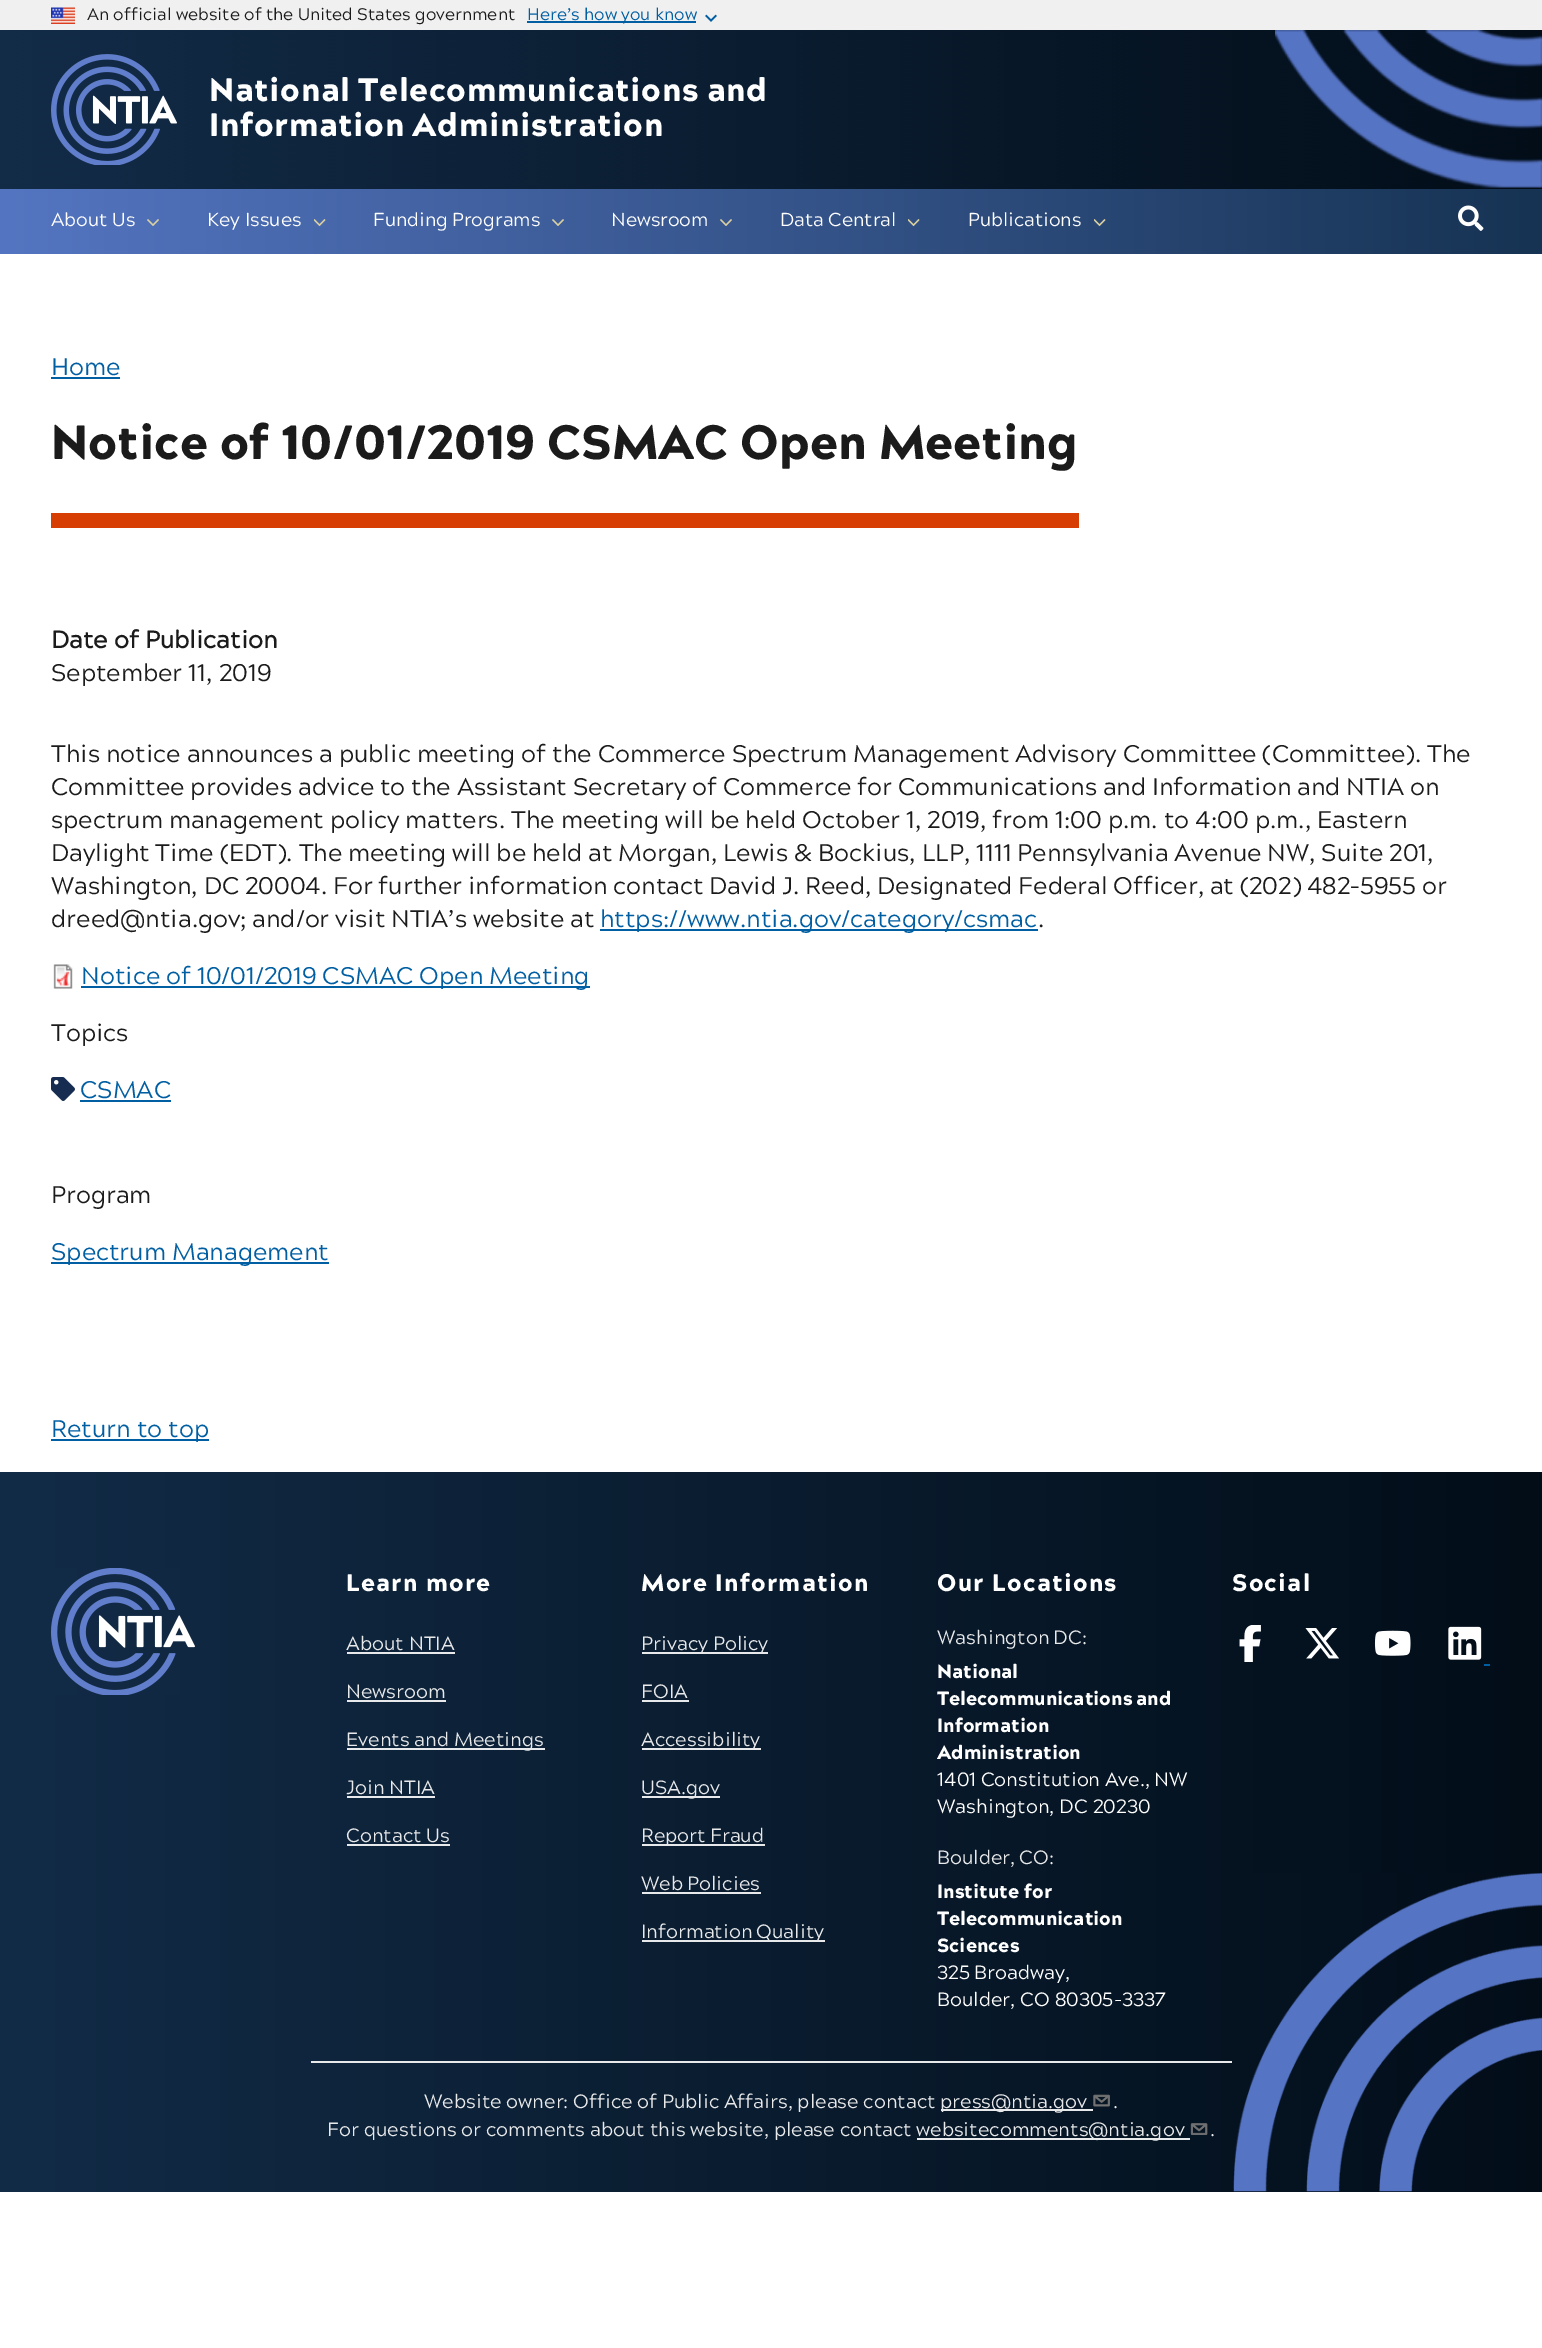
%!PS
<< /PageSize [1542 2348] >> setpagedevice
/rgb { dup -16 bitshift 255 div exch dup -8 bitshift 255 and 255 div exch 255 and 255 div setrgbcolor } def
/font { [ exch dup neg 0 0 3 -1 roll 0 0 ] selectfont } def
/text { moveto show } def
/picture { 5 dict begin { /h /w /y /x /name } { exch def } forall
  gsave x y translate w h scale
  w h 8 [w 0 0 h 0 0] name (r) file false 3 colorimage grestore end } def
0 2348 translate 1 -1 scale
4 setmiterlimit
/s1 { /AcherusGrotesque-Regular 16.8 font 16#1B1B1B rgb } def
/s2 { /AcherusGrotesque-Regular 16.8 font 16#005EA2 rgb } def
/s3 { /AcherusGrotesque-Regular 18.75 font 16#FFFFFF rgb } def
/s4 { /AcherusGrotesque-Regular 24 font 16#005EA2 rgb } def
/s5 { /AcherusGrotesque-Black 48 font 16#1B1B1B rgb } def
/s6 { /AcherusGrotesque-Bold 24 font 16#1B1B1B rgb } def
/s7 { /AcherusGrotesque-Regular 24 font 16#1B1B1B rgb } def
/s8 { /AcherusGrotesque-Regular 19.2 font 16#E8E9EA rgb } def
/s9 { /AcherusGrotesque-Black 19.2 font 16#FFFFFF rgb } def
/s10 { /AcherusGrotesque-Regular 19.2 font 16#FFFFFF rgb } def
16#FFFFFF rgb
0 0 1542 2348 rectfill
16#F0F0F0 rgb
0 0 1542 30 rectfill
(pic1.raw) 51 7 24 17 picture
s1
(An official website of the United States government) 87 20 text
16#005EA2 rgb
527 21 169 2 rectfill
(Here’s how you know) 527 20 text
(pic2.raw) 705 14 12 8 picture
(pic3.raw) 0 30 1542 159 picture
(pic4.raw) 51 54 126 111 picture
/AcherusGrotesque-Black 32.4 font
16#FFFFFF rgb
209 101 moveto -1 0 32 0.6 0 (National Telecommunications and) awidthshow
209 136 moveto -1 0 32 0.6 0 (Information Administration) awidthshow
gsave 0 189 moveto 1542 189 lineto 1542 254 lineto 0 254 lineto closepath clip newpath
<< /ShadingType 2 /ColorSpace /DeviceRGB /Coords [0 221 1542 221] /Extend [true true] /Function << /FunctionType 3 /Domain [0 1] /Functions [<< /FunctionType 2 /Domain [0 1] /C0 [0.329 0.459 0.757] /C1 [0.212 0.333 0.549] /N 1 >> << /FunctionType 2 /Domain [0 1] /C0 [0.212 0.333 0.549] /C1 [0.086 0.2 0.325] /N 1 >>] /Bounds [0.5] /Encode [0 1 0 1] >> >> shfill grestore
(pic5.raw) 147 219 12 7 picture
s3
(About Us) 51 226 text
(pic6.raw) 314 219 12 8 picture
(Key Issues) 207 226 text
(pic7.raw) 552 219 12 7 picture
373 226 moveto -1 0 32 (Funding Programs) widthshow
(pic8.raw) 720 219 12 7 picture
(Newsroom) 611 226 text
(pic9.raw) 908 219 12 8 picture
(Data Central) 780 226 text
(pic10.raw) 1094 219 12 8 picture
(Publications) 968 226 text
(pic11.raw) 1458 205 26 26 picture
s4
(Home) 51 375 text
51 377 69 2 rectfill
16#D63E04 rgb
51 513 1028 15 rectfill
s5
(Notice of 10/01/2019 CSMAC Open Meeting) 51 459 text
s6
(Date of Publication) 51 648 text
s7
(September 11, 2019) 51 681 text
(This notice announces a public meeting of the Commerce Spectrum Management Advisory Committee \(Committee\). The) 51 762 text
51 795 moveto -0.1 0 32 (Committee provides advice to the Assistant Secretary of Commerce for Communications and Information and NTIA on) widthshow
(spectrum management policy matters. The meeting will be held October 1, 2019, from 1:00 p.m. to 4:00 p.m., Eastern) 51 828 text
51 861 moveto -0.25 0 32 (Daylight Time \(EDT\). The meeting will be held at Morgan, Lewis & Bockius, LLP, 1111 Pennsylvania Avenue NW, Suite 201,) widthshow
51 894 moveto -0.3 0 32 (Washington, DC 20004. For further information contact David J. Reed, Designated Federal Officer, at \(202\) 482–5955 or) widthshow
(dreed@ntia.gov) 51 927 text
240 927 moveto -0.25 0 32 (; and/or visit NTIA’s website at) widthshow
16#005EA2 rgb
600 929 438 2 rectfill
(https://www.ntia.gov/category/csmac) 600 927 text
s7
(.) 1038 927 text
(pic12.raw) 53 964 20 25 picture
16#005EA2 rgb
81 986 509 2 rectfill
(Notice of 10/01/2019 CSMAC Open Meeting) 81 984 text
s7
(Topics) 51 1041 text
(pic13.raw) 51 1077 24 24 picture
s4
(CSMAC) 80 1098 text
80 1100 91 2 rectfill
s7
(Program) 51 1203 text
16#005EA2 rgb
51 1262 278 2 rectfill
(Spectrum Management) 51 1260 text
51 1439 158 2 rectfill
(Return to top) 51 1437 text
gsave 0 1472 moveto 1542 1472 lineto 1542 2192 lineto 0 2192 lineto closepath clip newpath
<< /ShadingType 2 /ColorSpace /DeviceRGB /Coords [0 1832 1542 1832] /Extend [true true] /Function << /FunctionType 2 /Domain [0 1] /C0 [0.071 0.169 0.278] /C1 [0.008 0.051 0.094] /N 1 >> >> shfill grestore
(pic14.raw) 51 1568 144 127 picture
/AcherusGrotesque-Black 24 font
16#FFFFFF rgb
346 1591 moveto 1.25 0 (Learn more) ashow
s8
(About NTIA) 346 1650 text
347 1652 108 2 rectfill
(Newsroom) 346 1698 text
347 1700 99 2 rectfill
347 1748 198 2 rectfill
(Events and Meetings) 346 1746 text
(Join NTIA) 346 1794 text
347 1796 88 2 rectfill
(Contact Us) 346 1842 text
347 1844 103 2 rectfill
/AcherusGrotesque-Black 24 font
16#FFFFFF rgb
641 1591 moveto 1.25 0 (More Information) ashow
16#E8E9EA rgb
642 1652 126 2 rectfill
s8
(Privacy Policy) 641 1650 text
(FOIA) 641 1698 text
642 1700 47 2 rectfill
642 1748 119 2 rectfill
(Accessibility) 641 1746 text
642 1796 78 2 rectfill
(USA.gov) 641 1794 text
642 1844 123 2 rectfill
641 1842 moveto -1 0 32 (Report Fraud) widthshow
641 1890 moveto -1 0 32 (Web Policies) widthshow
642 1892 119 2 rectfill
642 1940 183 2 rectfill
641 1938 moveto -1 0 32 (Information Quality) widthshow
/AcherusGrotesque-Black 24 font
16#FFFFFF rgb
937 1591 moveto 1.25 0 (Our Locations) ashow
/AcherusGrotesque-Regular 19.2 font
16#E8E9EA rgb
937 1644 moveto -1 0 32 (Washington DC:) widthshow
s9
(National) 937 1678 text
937 1705 moveto -1 0 32 (Telecommunications and) widthshow
(Information) 937 1732 text
(Administration) 937 1759 text
/AcherusGrotesque-Regular 19.2 font
937 1786 moveto -0.3 0 32 (1401 Constitution Ave., NW) widthshow
(Washington, DC 20230) 937 1813 text
16#E8E9EA rgb
937 1864 moveto -1 0 32 (Boulder, CO:) widthshow
s9
(Institute for) 937 1898 text
(Telecommunication) 937 1925 text
(Sciences) 937 1952 text
/AcherusGrotesque-Regular 19.2 font
937 1979 moveto -1 0 32 (325 Broadway,) widthshow
(Boulder, CO 80305-3337) 937 2006 text
/AcherusGrotesque-Black 24 font
1232 1591 moveto 1.25 0 (Social) ashow
(pic15.raw) 1239 1625 22 37 picture
(pic16.raw) 1305 1628 34 31 picture
(pic17.raw) 1374 1630 37 26 picture
(pic18.raw) 1448 1626 34 34 picture
16#005EA2 rgb
1484 1664 6 2 rectfill
16#E8E9EA rgb
311 2061 921 2 rectfill
/AcherusGrotesque-Regular 19.2 font
424 2108 moveto -0.25 0 32 (Website owner: Office of Public Affairs, please contact) widthshow
941 2109 152 2 rectfill
(press@ntia.gov) 940 2108 text
(pic19.raw) 1093 2094 17 13 picture
(.) 1113 2108 text
(For questions or comments about this website, please contact) 327 2136 text
917 2138 267 2 rectfill
(websitecomments@ntia.gov) 916 2136 text
1184 2138 6 2 rectfill
(pic20.raw) 1190 2123 18 12 picture
(.) 1210 2136 text
(pic21.raw) 1233 1873 309 319 picture
showpage
